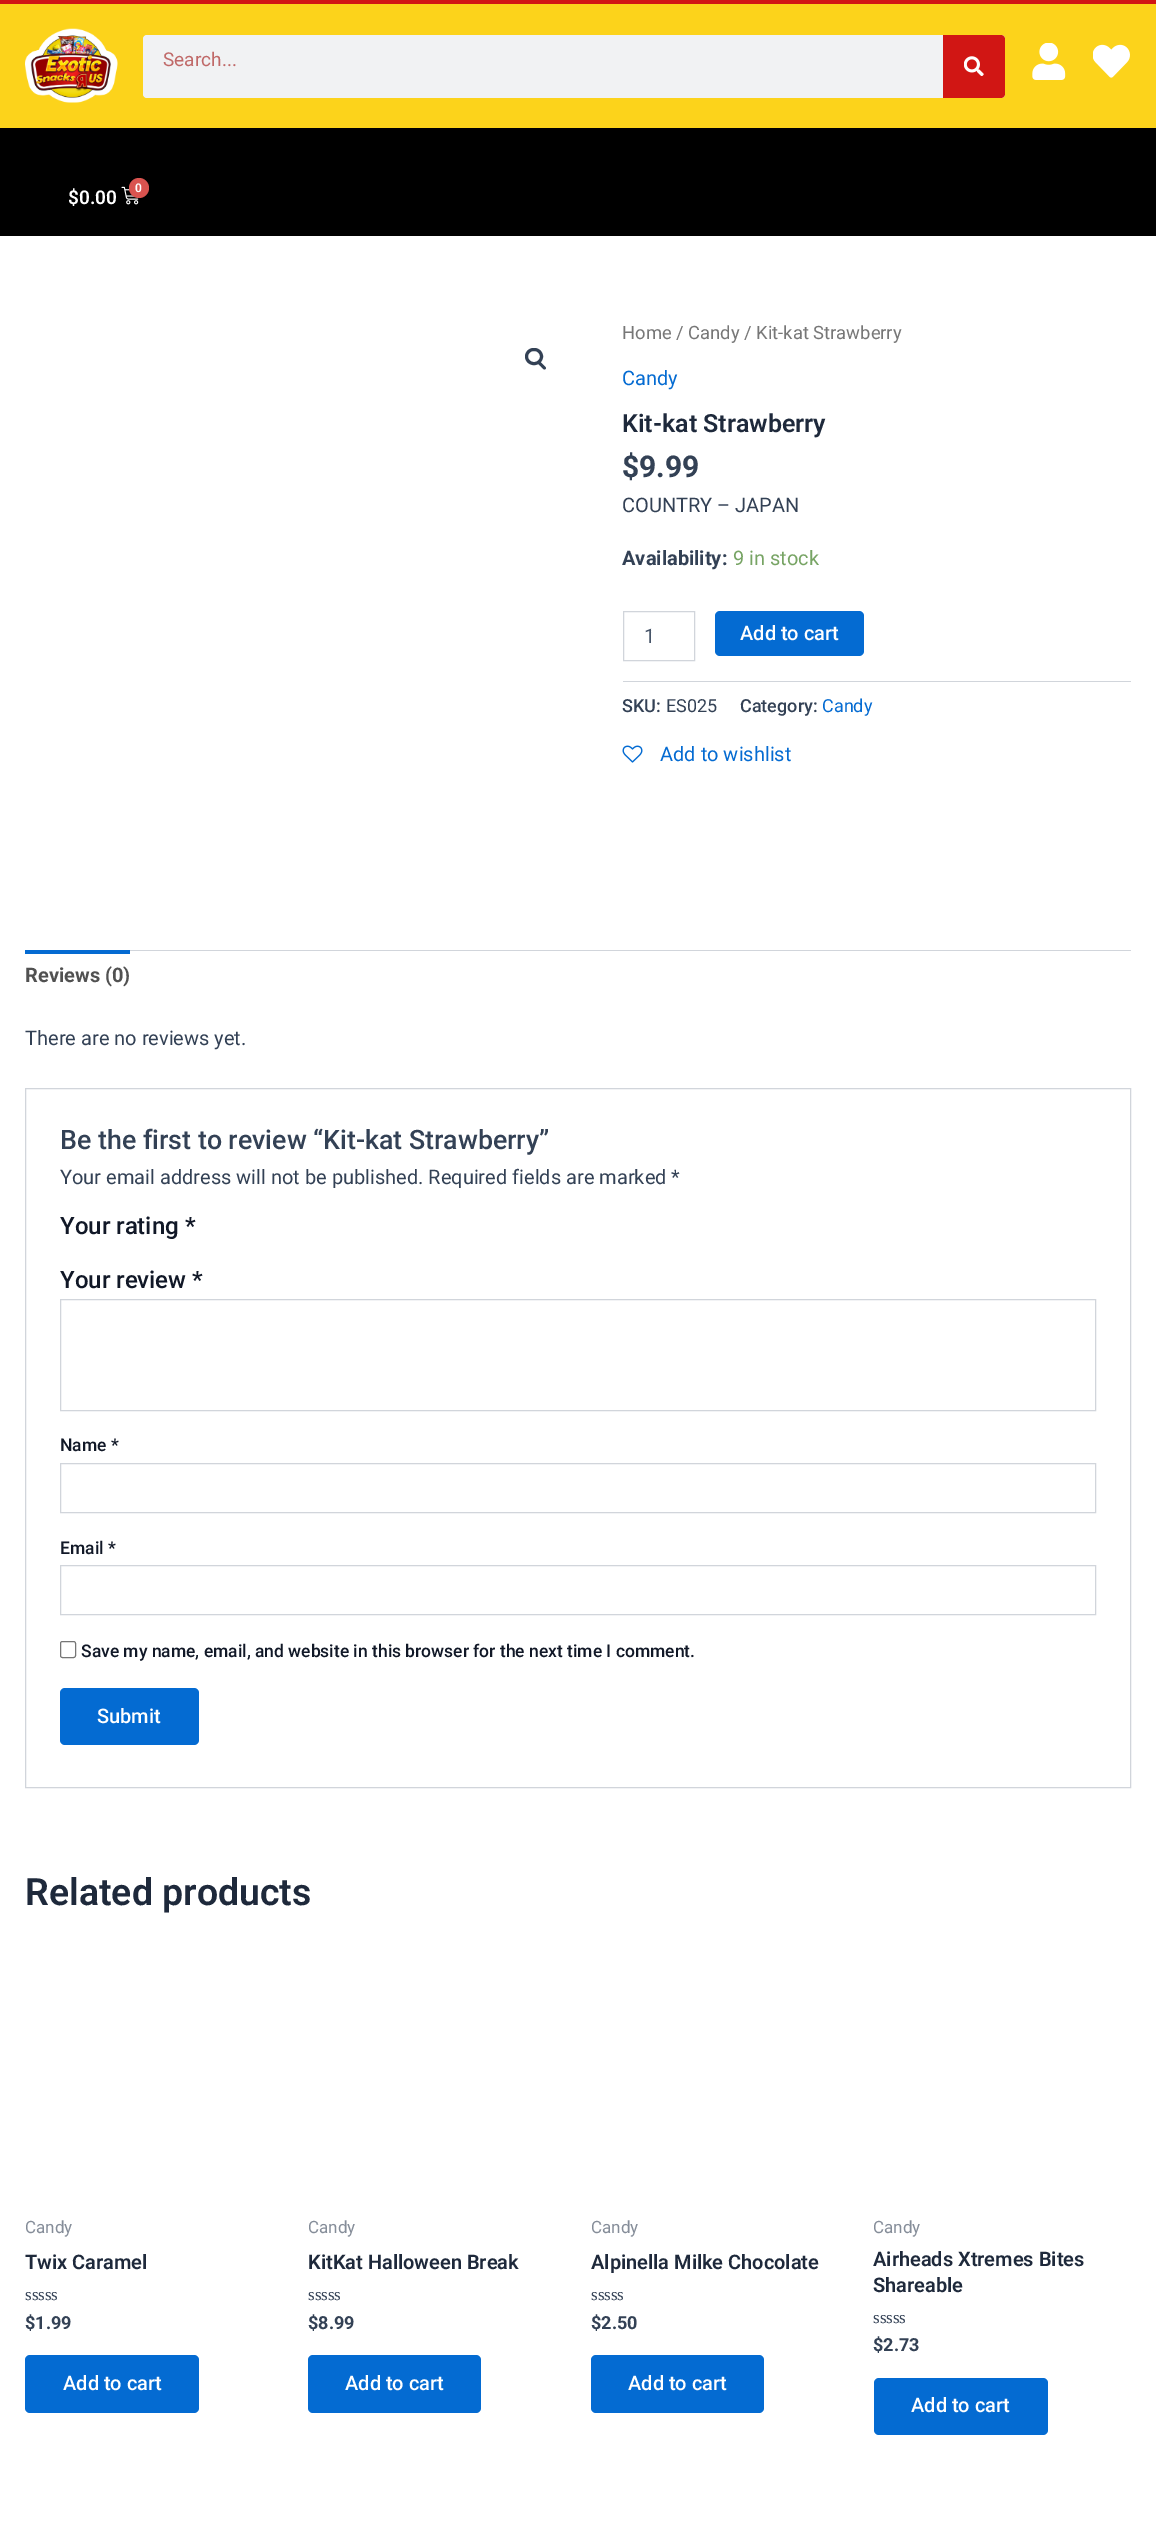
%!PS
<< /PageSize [1156 2525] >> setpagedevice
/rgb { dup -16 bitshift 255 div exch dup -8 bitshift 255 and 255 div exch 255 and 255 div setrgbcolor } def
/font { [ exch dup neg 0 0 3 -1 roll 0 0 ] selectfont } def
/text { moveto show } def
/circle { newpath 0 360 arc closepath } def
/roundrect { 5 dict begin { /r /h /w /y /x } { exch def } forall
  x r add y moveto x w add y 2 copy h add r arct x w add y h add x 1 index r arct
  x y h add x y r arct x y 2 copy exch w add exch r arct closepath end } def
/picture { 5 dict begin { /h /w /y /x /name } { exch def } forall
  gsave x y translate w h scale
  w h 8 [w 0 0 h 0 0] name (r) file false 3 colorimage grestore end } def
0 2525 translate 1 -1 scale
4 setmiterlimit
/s1 { /Roboto-Regular 19 font 16#C06968 rgb } def
/s2 { /Roboto-SemiBold 19 font 16#FFFFFF rgb } def
/s3 { /Roboto-SemiBold 12 font 16#FFFFFF rgb } def
/s4 { /Roboto-Regular 18.4 font 16#777777 rgb } def
/s5 { /Roboto-Regular 20 font 16#046BD2 rgb } def
/s6 { /Roboto-SemiBold 25 font 16#1E293B rgb } def
/s7 { /Roboto-Bold 30 font 16#334155 rgb } def
/s8 { /Roboto-Regular 20 font 16#334155 rgb } def
/s9 { /Roboto-Bold 20 font 16#334155 rgb } def
/s10 { /Roboto-Regular 20 font 16#77A464 rgb } def
/s11 { /Roboto-Regular 20 font 16#475569 rgb } def
/s12 { /Roboto-Medium 20 font 16#FFFFFF rgb } def
/s13 { /Roboto-Medium 18 font 16#334155 rgb } def
/s14 { /Roboto-Regular 18 font 16#334155 rgb } def
/s15 { /Roboto-Regular 18 font 16#046BD2 rgb } def
/s16 { /Roboto-Bold 20 font 16#515151 rgb } def
/s17 { /Roboto-Medium 26.75 font 16#334155 rgb } def
/s18 { /Roboto-Medium 24 font 16#111827 rgb } def
/s19 { /Roboto-Medium 17.5 font 16#111827 rgb } def
/s20 { /Roboto-SemiBold 37.5 font 16#1E293B rgb } def
/s21 { /Roboto-Regular 17 font 16#858D99 rgb } def
/s22 { /Roboto-SemiBold 20 font 16#1E293B rgb } def
/s23 { /LiberationSerif-Regular 17 font 16#334155 rgb } def
/s24 { /Roboto-Bold 18 font 16#334155 rgb } def
16#FFFFFF rgb
0 0 1156 2525 rectfill
16#FCD31B rgb
0 4 1156 124 rectfill
16#D11614 rgb
0 0 1156 4 rectfill
(pic1.raw) 25 28 93 75 picture
16#F1F2F3 rgb
143 35 862 63 4 roundrect fill
s1
(Search...) 163 66 text
16#D11614 rgb
943 35 moveto 1001 35 lineto 1003 35 1005 37 1005 39 curveto 1005 94 lineto 1005 96 1003 98 1001 98 curveto 943 98 lineto closepath fill
(pic2.raw) 964 56 20 20 picture
(pic3.raw) 1032 43 34 37 picture
(pic4.raw) 1093 44 37 34 picture
16#000000 rgb
0 128 1156 108 rectfill
s2
($0.00) 68 204 text
(pic5.raw) 121 186 18 19 picture
16#D9534F rgb
139 188 10 circle fill
s3
(0) 135 192 text
16#334155 rgb
3 setlinewidth
526.5 349.5 15 14 7 roundrect stroke
538.5 362 moveto 540 360.5 542 364 543 364.5 curveto 543.5 365.5 547 367.5 545.5 369 curveto 544 370.5 542 367.5 541 366.5 curveto 540 365.5 537 363.5 538.5 362 curveto closepath fill
s4
(Home / Candy / Kit-kat Strawberry) 622 339 text
s5
(Candy) 622 385 text
s6
(Kit-kat Strawberry) 622 432 text
s7
($9.99) 622 477 text
s8
(COUNTRY – JAPAN) 622 512 text
s9
(Availability:) 622 565 text
s10
(9 in stock) 733 565 text
16#D1D5DB rgb
1 setlinewidth
623.5 611.5 71 49 rectstroke
s11
(1) 644 643 text
16#046BD2 rgb
715 611 149 45 5 roundrect fill
s12
(Add to cart) 740 640 text
16#D1D5DB rgb
623 681 508 1 rectfill
s13
(SKU:) 622 712 text
s14
(ES025) 666 712 text
s13
(Category:) 740 712 text
s15
(Candy) 822 712 text
(pic6.raw) 622 745 21 18 picture
s5
(Add to wishlist) 660 761 text
16#D1D5DB rgb
130 950 1001 1 rectfill
16#046BD2 rgb
25 950 105 4 rectfill
s16
(Reviews \(0\)) 25 982 text
s8
(There are no reviews yet.) 25 1045 text
16#D1D5DB rgb
25.5 1088.5 1105 699 rectstroke
s17
(Be the first to review “Kit-kat Strawberry”) 60 1149 text
s8
(Your email address will not be published. Required fields are marked *) 60 1184 text
s18
(Your rating *) 60 1234 text
(Your review *) 60 1288 text
16#D1D5DB rgb
60.5 1299.5 1035 111 rectstroke
s19
(Name *) 60 1451 text
16#D1D5DB rgb
60.5 1463.5 1035 49 rectstroke
s19
(Email *) 60 1554 text
16#D1D5DB rgb
60.5 1565.5 1035 49 rectstroke
16#767676 rgb
60.5 1641.5 15 16 2 roundrect stroke
s19
(Save my name, email, and website in this browser for the next time I comment.) 81 1657 text
16#046BD2 rgb
60 1688 139 57 5 roundrect fill
s12
(Submit) 97 1723 text
s20
(Related products) 25 1905 text
s21
(Candy) 25 2233 text
s22
(Twix Caramel) 25 2269 text
s23
(sssss) 25 2300 text
s24
($1.99) 25 2329 text
16#046BD2 rgb
25 2355 174 58 5 roundrect fill
s12
(Add to cart) 63 2390 text
s21
(Candy) 308 2233 text
s22
(KitKat Halloween Break) 308 2269 text
s23
(sssss) 308 2300 text
s24
($8.99) 308 2329 text
16#046BD2 rgb
308 2355 173 58 5 roundrect fill
s12
(Add to cart) 345 2390 text
s21
(Candy) 591 2233 text
s22
(Alpinella Milke Chocolate) 591 2269 text
s23
(sssss) 591 2300 text
s24
($2.50) 591 2329 text
16#046BD2 rgb
591 2355 173 58 5 roundrect fill
s12
(Add to cart) 628 2390 text
s21
(Candy) 873 2233 text
s22
(Airheads Xtremes Bites) 873 2266 text
(Shareable) 873 2292 text
s23
(sssss) 873 2323 text
s24
($2.73) 873 2351 text
16#046BD2 rgb
874 2378 174 57 5 roundrect fill
s12
(Add to cart) 911 2412 text
showpage
